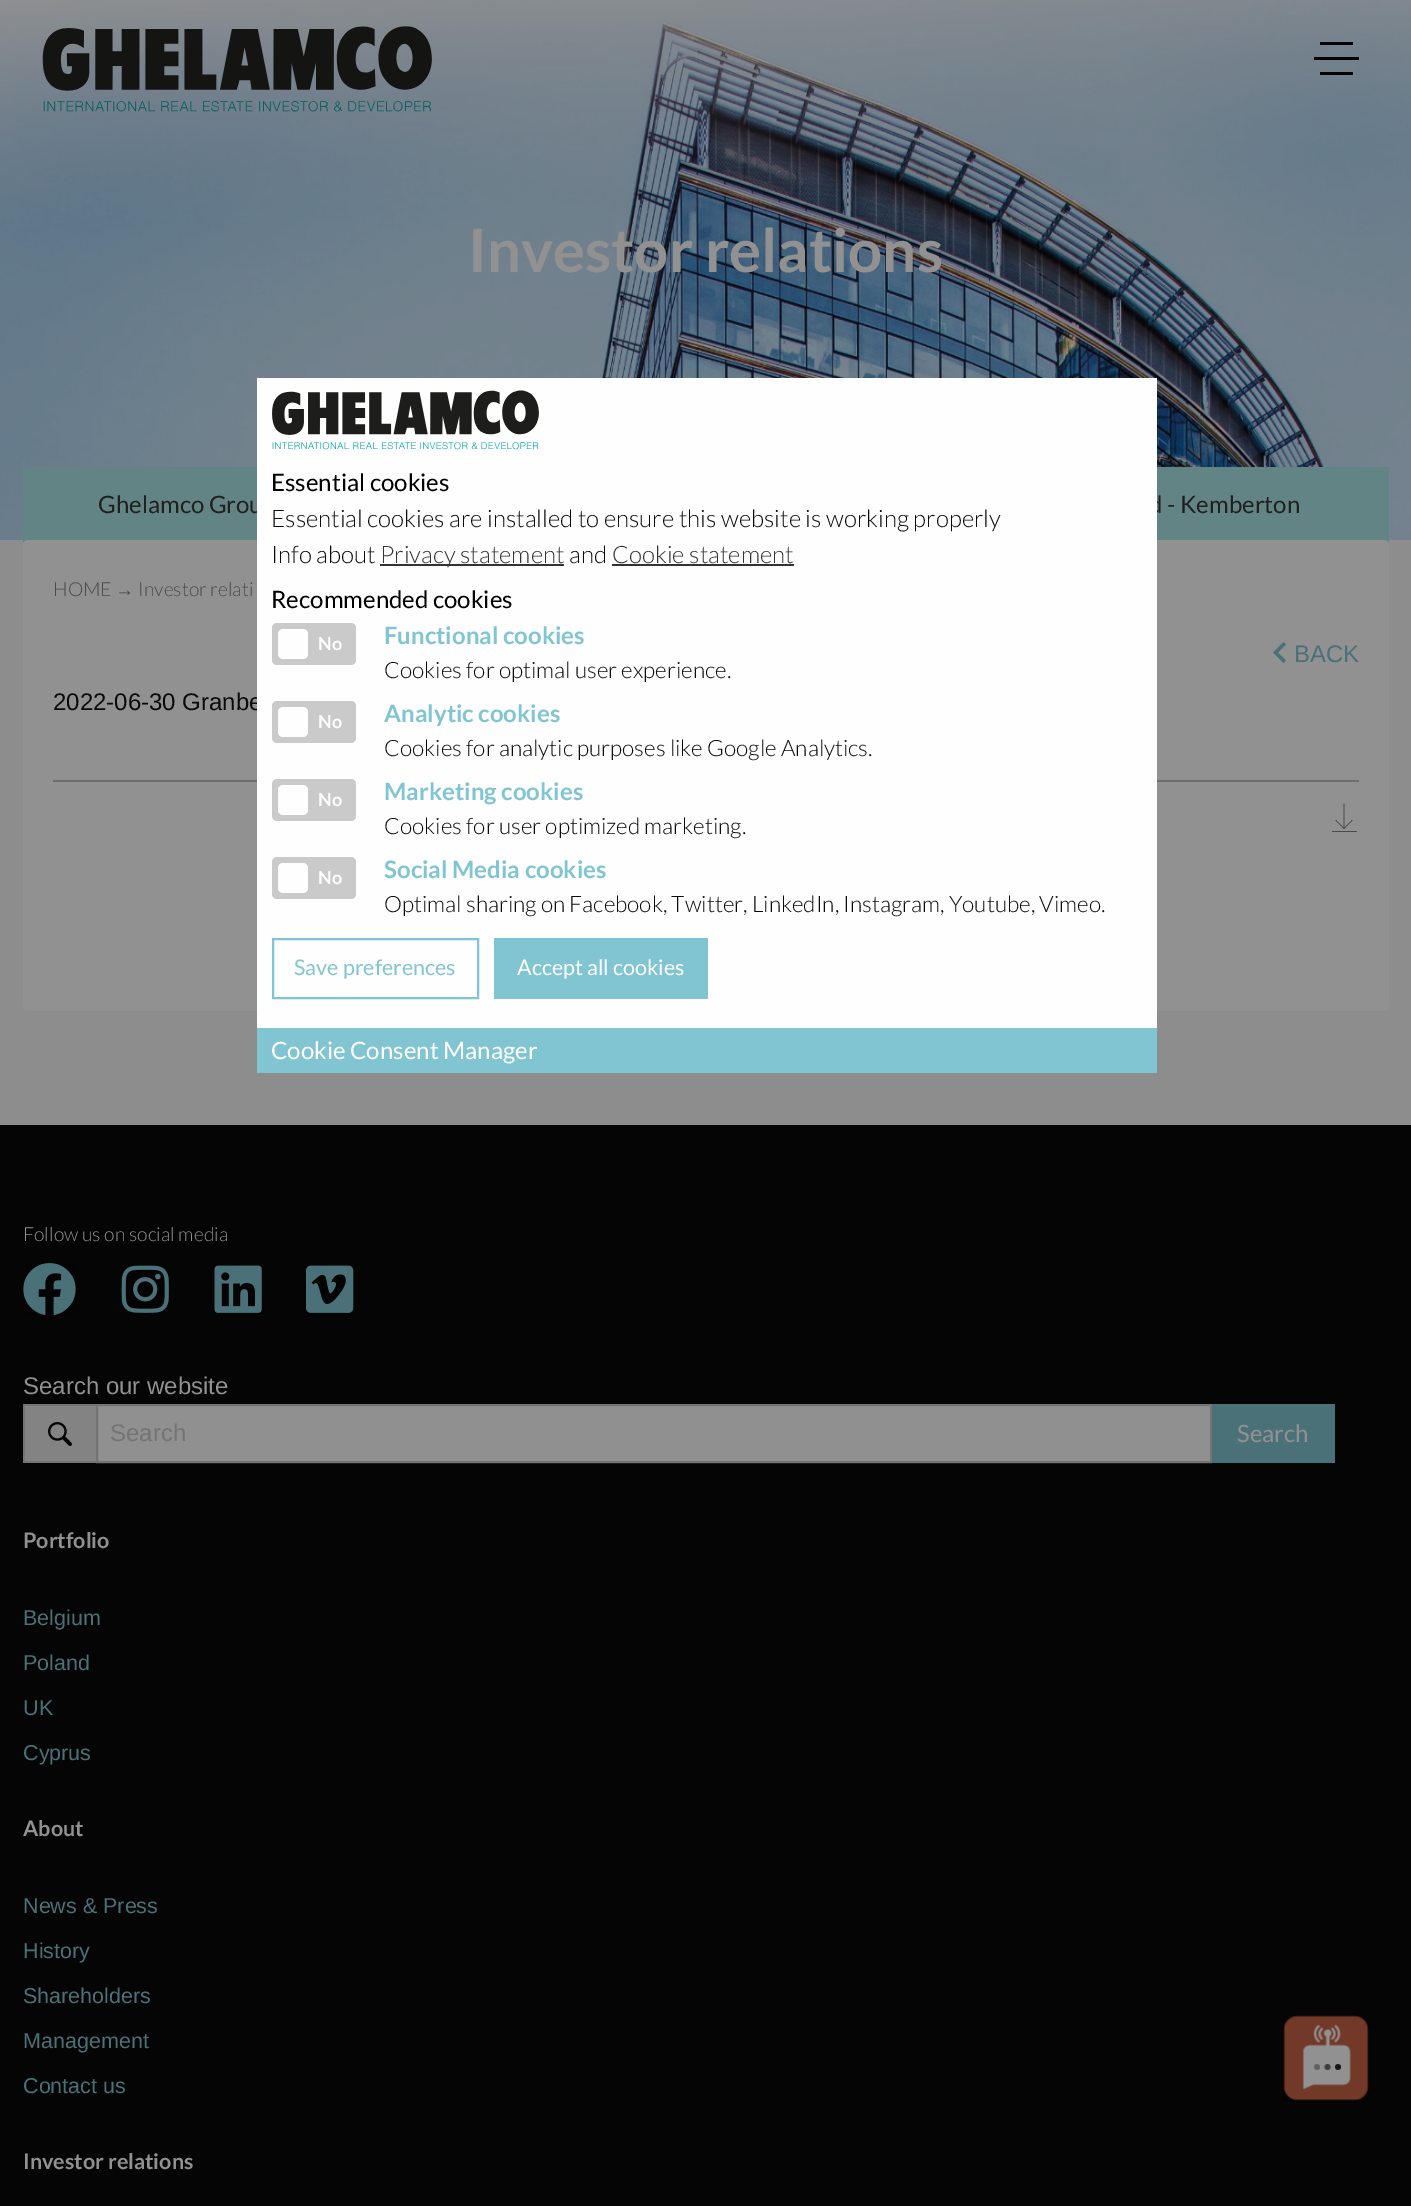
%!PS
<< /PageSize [1411 2206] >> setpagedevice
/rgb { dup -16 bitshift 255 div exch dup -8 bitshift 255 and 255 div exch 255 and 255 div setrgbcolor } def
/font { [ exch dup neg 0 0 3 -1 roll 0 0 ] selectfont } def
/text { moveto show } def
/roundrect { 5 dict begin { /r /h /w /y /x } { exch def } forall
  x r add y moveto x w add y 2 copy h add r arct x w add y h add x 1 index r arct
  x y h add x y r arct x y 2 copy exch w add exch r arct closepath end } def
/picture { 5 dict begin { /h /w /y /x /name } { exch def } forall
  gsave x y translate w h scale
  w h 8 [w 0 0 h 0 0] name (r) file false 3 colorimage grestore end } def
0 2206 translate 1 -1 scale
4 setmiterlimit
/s1 { /Lato-Bold 60 font 16#919191 rgb } def
/s2 { /Lato-Regular 24 font 16#212121 rgb } def
/s3 { /Lato-Light 19.25 font 16#4B4B4B rgb } def
/s4 { /LiberationSans-Regular 19.25 font 16#4B4B4B rgb } def
/s5 { /LiberationSans-Regular 24 font 16#4B7178 rgb } def
/s6 { /LiberationSans-Regular 24 font 16#0A0A0A rgb } def
/s7 { /Lato-Regular 24 font 16#000000 rgb } def
/s8 { /Lato-Light 24 font 16#0A0A0A rgb } def
/s9 { /Lato-Light 24 font 16#333333 rgb } def
/s10 { /Lato-Bold 18 font 16#FFFFFF rgb } def
/s11 { /Lato-Bold 24 font 16#81C5D2 rgb } def
/s12 { /Lato-Light 22.5 font 16#0A0A0A rgb } def
/s13 { /Lato-Regular 21.5 font 16#81C5D2 rgb } def
/s14 { /Lato-Regular 21.5 font 16#FFFFFF rgb } def
/s15 { /Lato-Regular 24 font 16#FFFFFF rgb } def
/s16 { /Lato-Light 19.25 font 16#919191 rgb } def
/s17 { /LiberationSans-Regular 24 font 16#919191 rgb } def
/s18 { /LiberationSans-Regular 24 font 16#747474 rgb } def
/s19 { /Lato-Regular 24 font 16#919191 rgb } def
/s20 { /Lato-Bold 21.5 font 16#919191 rgb } def
/s21 { /LiberationSans-Regular 21.5 font 16#4B7178 rgb } def
16#8D8D8D rgb
0 0 1411 2206 rectfill
(pic2.raw) 0 0 1411 540 picture
(pic1.raw) 42 26 390 86 picture
16#050505 rgb
1314 57 45 3 rectfill
1320 42 33 3 rectfill
1320 72 33 3 rectfill
s1
(Investor relations) 468 272 text
16#638485 rgb
23 467 1366 75 rectfill
s2
(Ghelamco Grou) 98 513 text
(d - Kemberton) 1149 513 text
16#919191 rgb
23 540 1366 471 5 roundrect fill
s3
(HOME) 53 596 text
s4
(→) 115 596 text
s3
(Investor relati) 138 596 text
(pic3.raw) 1273 642 13 21 picture
s5
(BACK) 1294 662 text
s6
(2022-06-30 Granbe) 53 710 text
16#6E6E6E rgb
53 780 1306 2 rectfill
(pic4.raw) 1332 803 25 29 picture
16#FEFEFE rgb
257 378 900 650 rectfill
(pic5.raw) 272 390 267 60 picture
s7
(Essential cookies) 271 491 text
s8
(Essential cookies are installed to ensure this website is working properly) 271 527 text
(Info about) 271 563 text
16#333333 rgb
380 564 184 2 rectfill
(Privacy statement) 380 563 text
s8
(and) 569 563 text
s9
(Cookie statement) 612 563 text
612 564 182 2 rectfill
s7
(Recommended cookies) 271 608 text
16#CACACA rgb
272 623 84 42 5 roundrect fill
16#FEFEFE rgb
278 629 30 30 5 roundrect fill
s10
(No) 318 650 text
s11
(Functional cookies) 384 644 text
s12
(Cookies for optimal user experience.) 384 678 text
16#CACACA rgb
272 701 84 42 5 roundrect fill
16#FEFEFE rgb
278 707 30 30 5 roundrect fill
s10
(No) 318 728 text
s11
(Analytic cookies) 384 722 text
s12
(Cookies for analytic purposes like Google Analytics.) 384 756 text
16#CACACA rgb
272 779 84 42 5 roundrect fill
16#FEFEFE rgb
278 785 30 30 5 roundrect fill
s10
(No) 318 806 text
s11
(Marketing cookies) 384 800 text
s12
(Cookies for user optimized marketing.) 384 834 text
16#CACACA rgb
272 857 84 42 5 roundrect fill
16#FEFEFE rgb
278 863 30 30 5 roundrect fill
s10
(No) 318 884 text
s11
(Social Media cookies) 384 878 text
s12
(Optimal sharing on Facebook, Twitter, LinkedIn, Instagram, Youtube, Vimeo.) 384 912 text
16#81C5D2 rgb
2 setlinewidth
273 939 205 59 rectstroke
s13
(Save preferences) 294 975 text
494 938 214 61 rectfill
s14
(Accept all cookies) 517 975 text
16#81C5D2 rgb
257 1028 900 45 rectfill
s15
(Cookie Consent Manager) 271 1059 text
16#050505 rgb
0 1125 1411 1081 rectfill
s16
(Follow us on social media) 23 1241 text
(pic6.raw) 23 1263 53 52 picture
(pic7.raw) 121 1265 48 48 picture
(pic8.raw) 214 1265 48 48 picture
(pic9.raw) 306 1265 48 48 picture
s17
(Search our website) 23 1394 text
16#838383 rgb
25 1406 71 55 rectfill
16#747474 rgb
23 1404 73 2 rectfill
23 1461 73 2 rectfill
23 1404 2 59 rectfill
(pic10.raw) 48 1422 24 24 picture
16#909090 rgb
97 1405 moveto 1211 1405 lineto 1211 1462 lineto 97 1462 lineto closepath gsave fill grestore
16#747474 rgb
stroke
(Search) 110 1441 text
16#4B7178 rgb
1212 1404 123 59 rectfill
s19
(Search) 1237 1442 text
s20
(Portfolio) 23 1548 text
s21
(Belgium) 23 1625 text
(Poland) 23 1670 text
(UK) 23 1715 text
(Cyprus) 23 1760 text
s20
(About) 23 1836 text
s21
(News & Press) 23 1913 text
(History) 23 1958 text
(Shareholders) 23 2003 text
(Management) 23 2048 text
(Contact us) 23 2093 text
s20
(Investor relations) 23 2169 text
(pic11.raw) 1283 2015 86 86 picture
showpage
